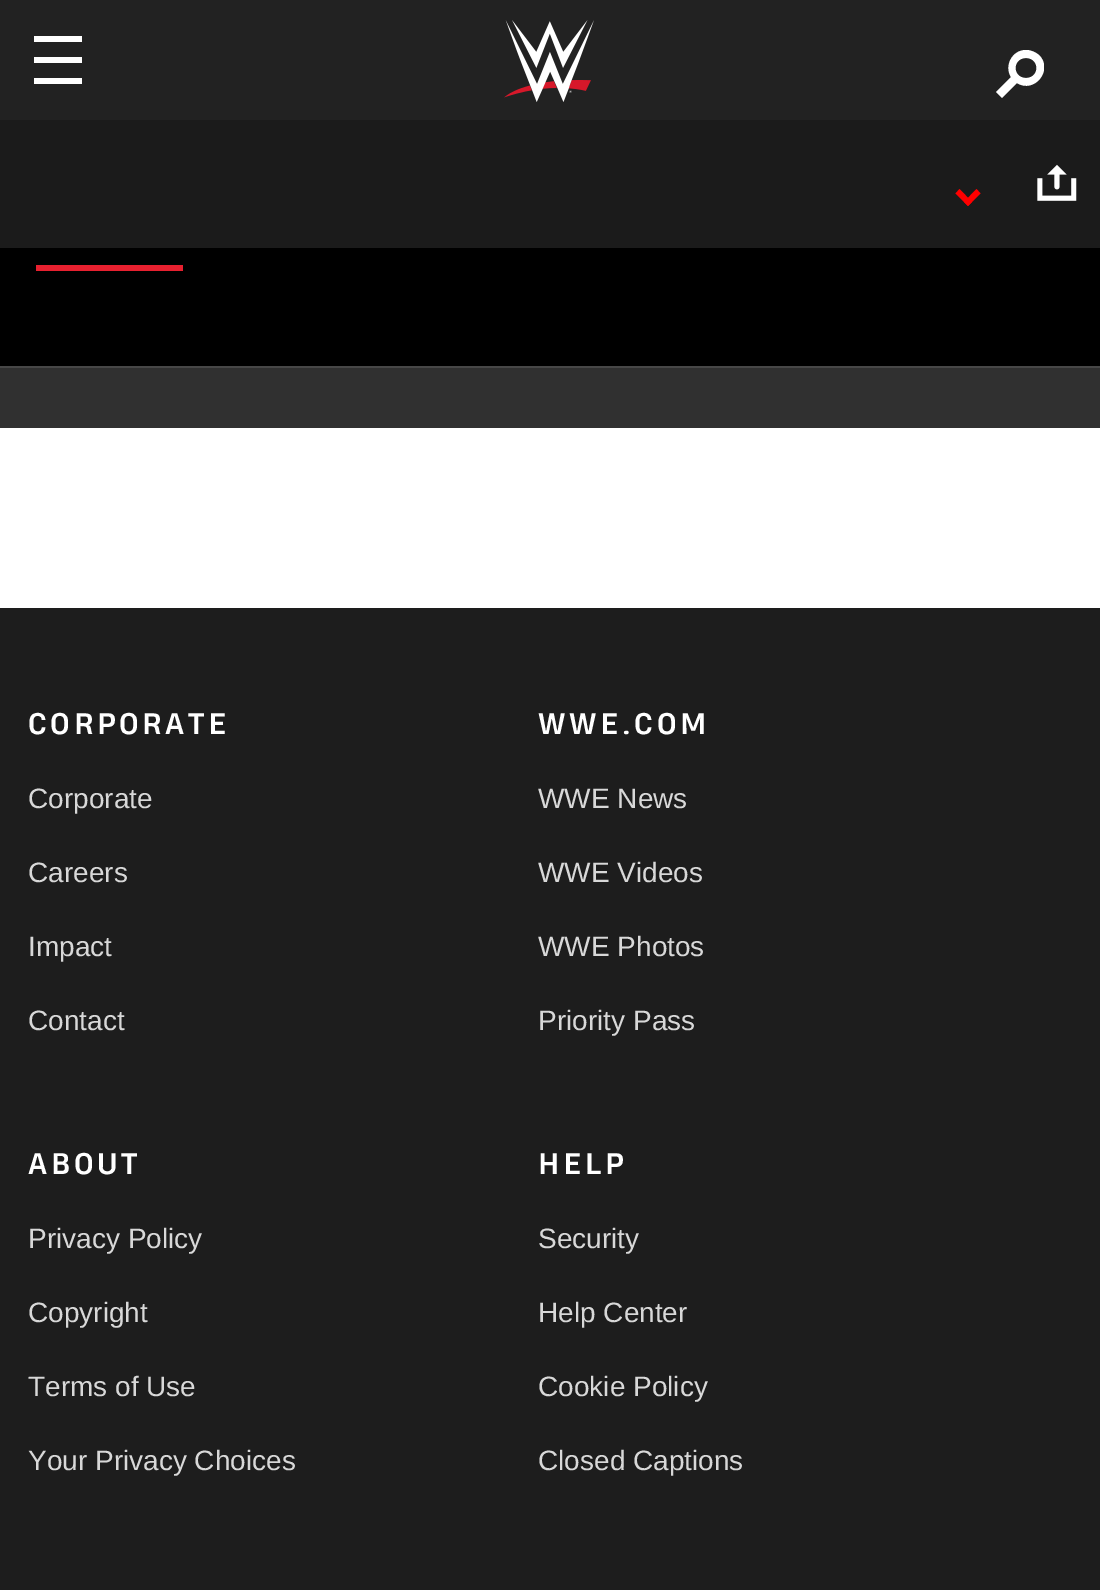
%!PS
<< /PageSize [1100 1590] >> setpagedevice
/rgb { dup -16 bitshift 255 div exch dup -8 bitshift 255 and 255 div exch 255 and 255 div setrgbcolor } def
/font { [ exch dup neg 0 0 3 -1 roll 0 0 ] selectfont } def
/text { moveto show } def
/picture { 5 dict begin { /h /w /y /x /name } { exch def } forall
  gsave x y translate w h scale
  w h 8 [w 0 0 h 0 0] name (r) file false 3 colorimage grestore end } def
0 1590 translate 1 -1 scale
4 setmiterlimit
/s1 { /LiberationSans-Regular 28 font 16#D8D8D8 rgb } def
16#FFFFFF rgb
0 0 1100 1590 rectfill
16#222222 rgb
0 0 1100 120 rectfill
16#FFFFFF rgb
36 42 moveto 34 42 lineto 34 36 lineto 82 36 lineto 82 42 lineto closepath 36 63 moveto 34 63 lineto 34 57 lineto 82 57 lineto 82 63 lineto closepath 36 84 moveto 34 84 lineto 34 78 lineto 82 78 lineto 82 84 lineto closepath eofill
(pic1.raw) 504 20 90 82 picture
gsave
996 50 48 48 rectclip
1026 50 moveto 1031 50 1035 52 1039 55 curveto 1054 70 1034 94 1017 83 curveto 1002 98 lineto 996 92 lineto 1011 77 lineto 1004 66 1012 50 1026 50 curveto closepath 1026 58 moveto 1012 58 1012 78 1026 78 curveto 1040 78 1040 58 1026 58 curveto closepath eofill
grestore
16#303030 rgb
0 368 1100 60 rectfill
16#1B1B1B rgb
0 120 1100 128 rectfill
16#FF0000 rgb
976.5 189 moveto 980.5 193.5 lineto 968 206 lineto 964 202 lineto closepath fill
959.5 189 moveto 972 202 lineto 968 206 lineto 955.5 193.5 lineto closepath fill
(pic2.raw) 1037 164 40 37 picture
16#000000 rgb
0 248 1100 118 rectfill
16#474747 rgb
0 366 1100 2 rectfill
16#E7202F rgb
36 265 147 6 rectfill
16#1D1D1D rgb
0 608 1100 982 rectfill
/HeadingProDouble-Bold 28 font
16#FFFFFF rgb
28 734 moveto 3.5 0 (CORPORATE) ashow
s1
(Corporate) 28 808 text
(Careers) 28 882 text
(Impact) 28 956 text
(Contact) 28 1030 text
/HeadingProDouble-Bold 28 font
16#FFFFFF rgb
538 734 moveto 3.5 0 (WWE.COM) ashow
s1
(WWE News) 538 808 text
(WWE Videos) 538 882 text
(WWE Photos) 538 956 text
(Priority Pass) 538 1030 text
/HeadingProDouble-Bold 28 font
16#FFFFFF rgb
28 1174 moveto 3.5 0 (ABOUT) ashow
s1
(Privacy Policy) 28 1248 text
(Copyright) 28 1322 text
(Terms of Use) 28 1396 text
(Your Privacy Choices) 28 1470 text
/HeadingProDouble-Bold 28 font
16#FFFFFF rgb
538 1174 moveto 3.5 0 (HELP) ashow
s1
(Security) 538 1248 text
(Help Center) 538 1322 text
(Cookie Policy) 538 1396 text
(Closed Captions) 538 1470 text
showpage
